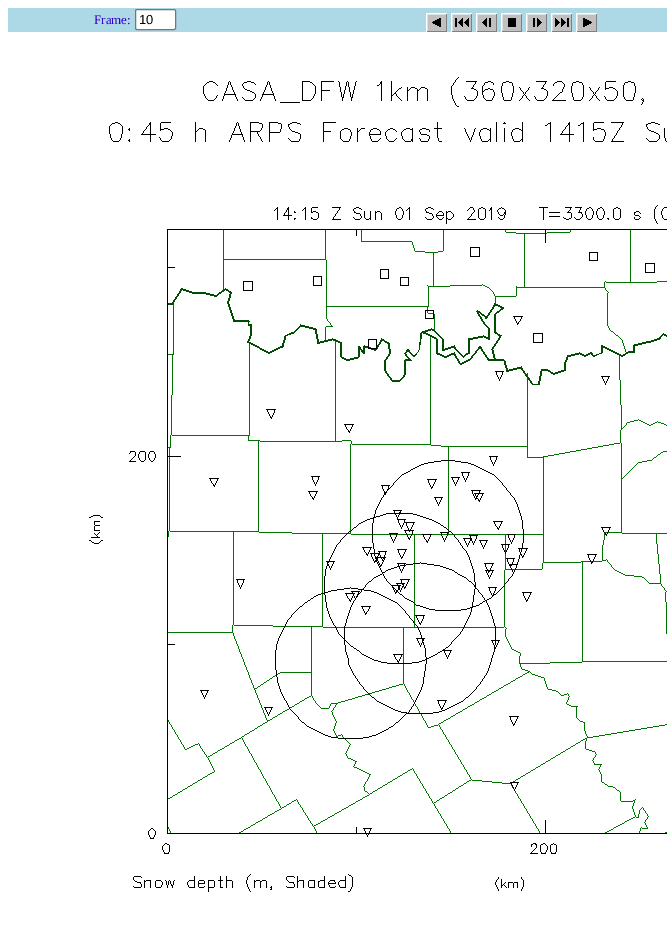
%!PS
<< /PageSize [667 945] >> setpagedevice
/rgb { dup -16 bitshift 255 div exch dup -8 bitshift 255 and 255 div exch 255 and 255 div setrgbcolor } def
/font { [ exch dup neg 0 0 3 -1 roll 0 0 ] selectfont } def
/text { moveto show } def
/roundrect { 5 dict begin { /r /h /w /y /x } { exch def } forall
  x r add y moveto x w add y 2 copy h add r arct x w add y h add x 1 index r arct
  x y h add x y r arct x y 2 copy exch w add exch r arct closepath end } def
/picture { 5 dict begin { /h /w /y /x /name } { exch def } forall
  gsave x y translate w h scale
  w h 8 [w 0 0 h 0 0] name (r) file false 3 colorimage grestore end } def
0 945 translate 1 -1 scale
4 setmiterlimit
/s1 { /LiberationSerif-Regular 13 font 16#3300CC rgb } def
/s2 { /LiberationSans-Regular 13 font 16#000000 rgb } def
16#FFFFFF rgb
0 0 667 945 rectfill
16#ADD8E6 rgb
8 8 659 24 rectfill
s1
(Frame:) 94 24 text
16#FFFFFF rgb
135.5 9.5 40 20 1.5 roundrect gsave fill grestore
16#767676 rgb
stroke
s2
(10) 139 24 text
(pic1.raw) 426 13 21 19 picture
(pic2.raw) 451 13 21 19 picture
(pic3.raw) 476 13 21 19 picture
(pic4.raw) 501 13 21 19 picture
(pic5.raw) 526 13 21 19 picture
(pic6.raw) 551 13 21 19 picture
(pic7.raw) 576 13 21 19 picture
(pic8.raw) 89 77 578 815 picture
showpage
